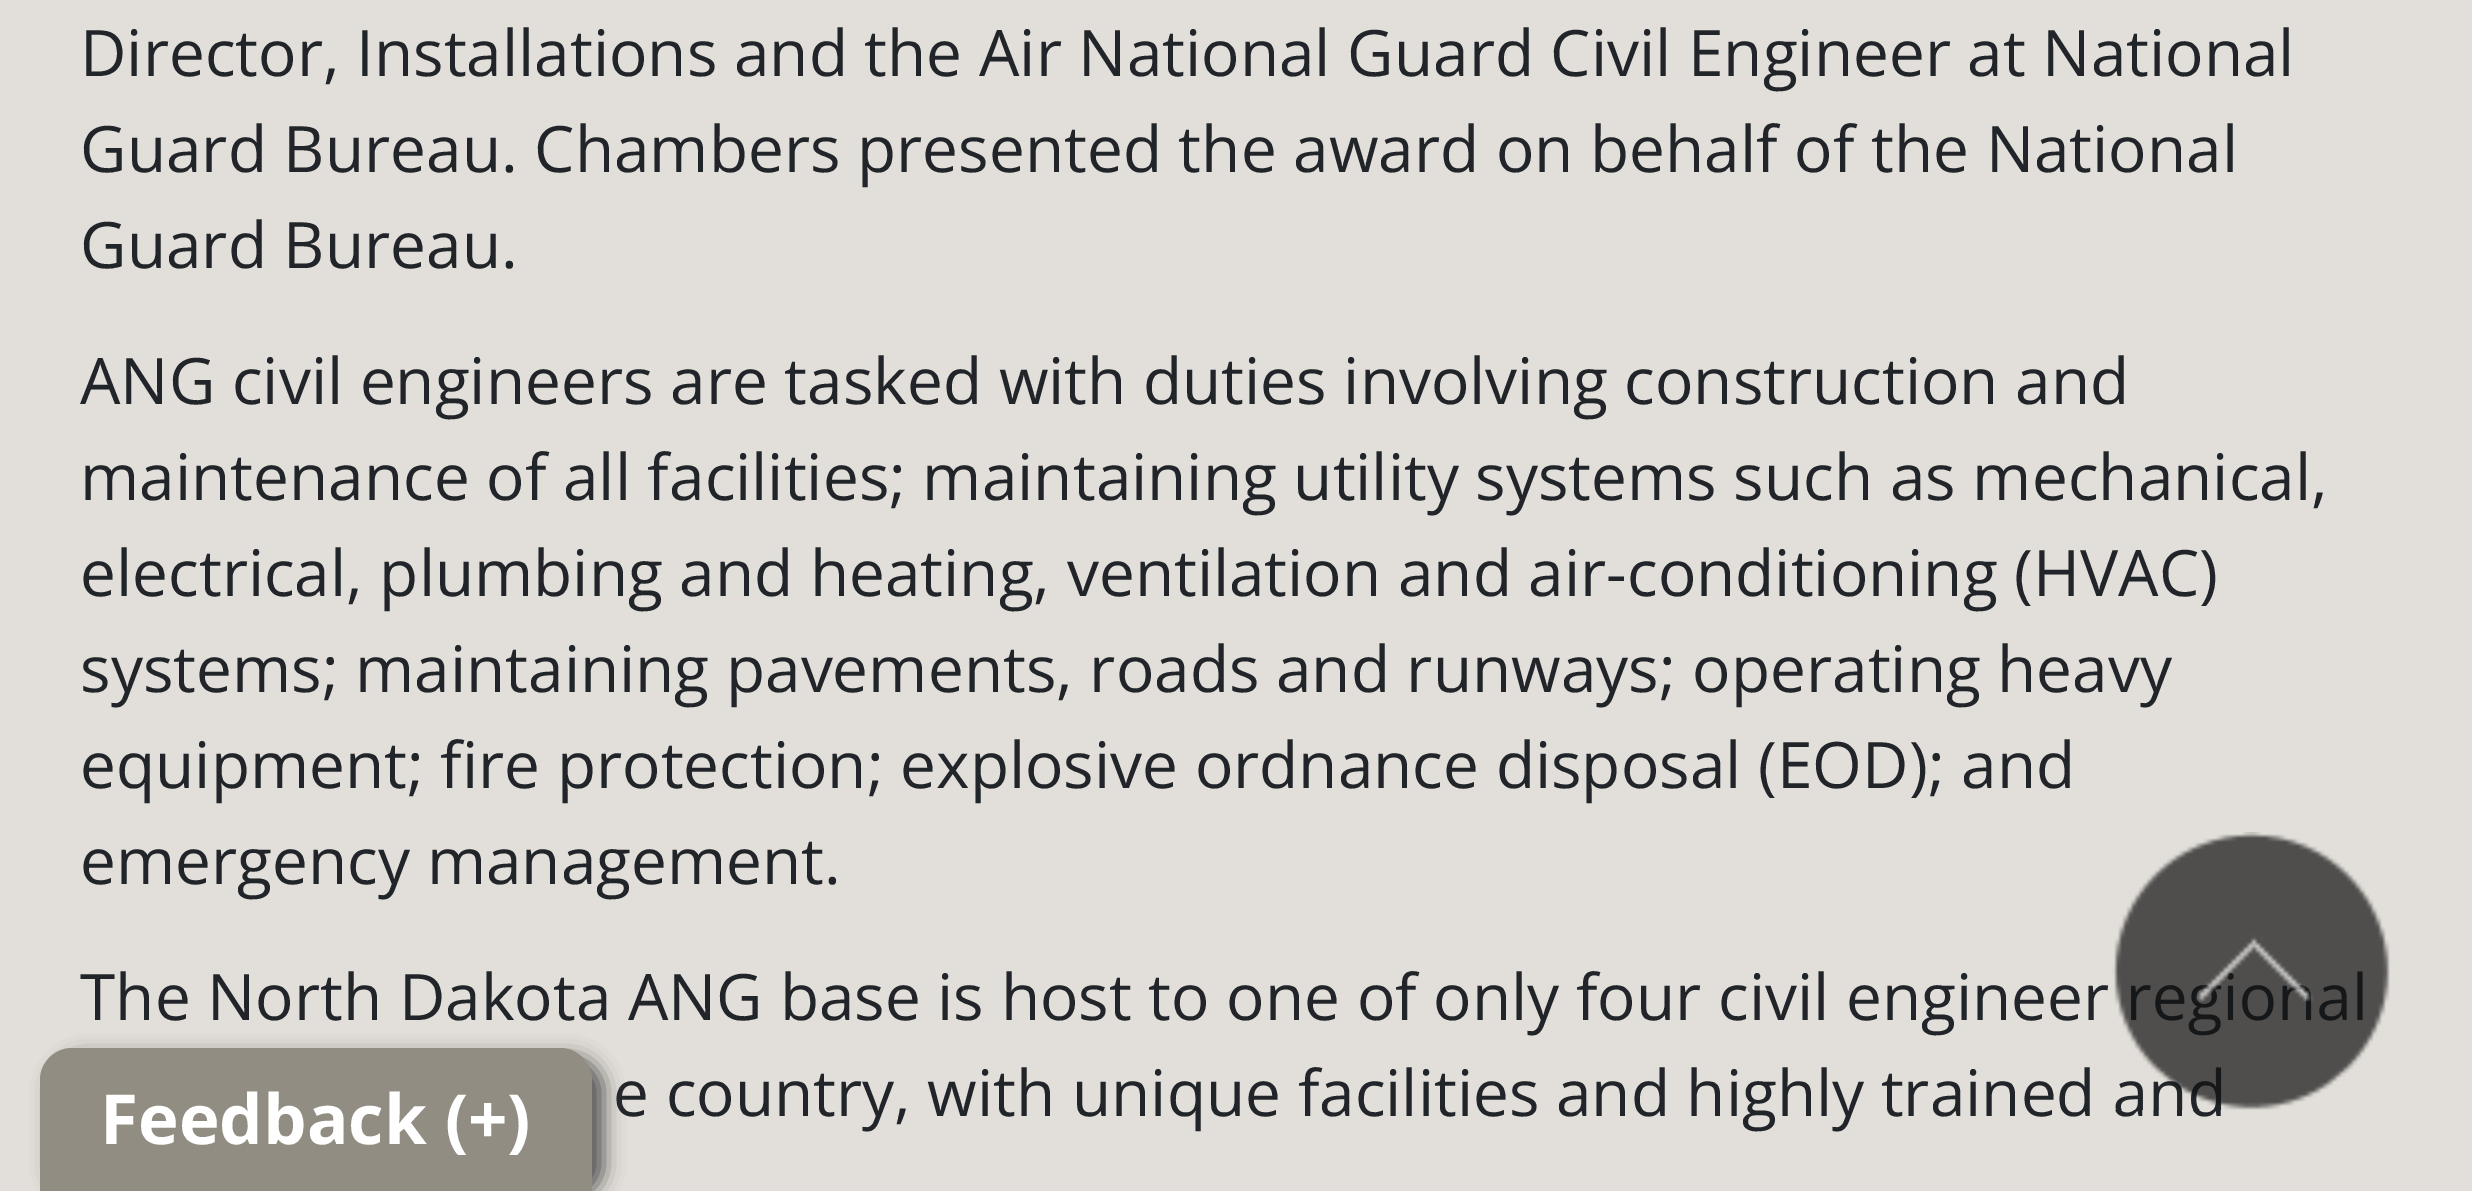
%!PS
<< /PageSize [2472 1191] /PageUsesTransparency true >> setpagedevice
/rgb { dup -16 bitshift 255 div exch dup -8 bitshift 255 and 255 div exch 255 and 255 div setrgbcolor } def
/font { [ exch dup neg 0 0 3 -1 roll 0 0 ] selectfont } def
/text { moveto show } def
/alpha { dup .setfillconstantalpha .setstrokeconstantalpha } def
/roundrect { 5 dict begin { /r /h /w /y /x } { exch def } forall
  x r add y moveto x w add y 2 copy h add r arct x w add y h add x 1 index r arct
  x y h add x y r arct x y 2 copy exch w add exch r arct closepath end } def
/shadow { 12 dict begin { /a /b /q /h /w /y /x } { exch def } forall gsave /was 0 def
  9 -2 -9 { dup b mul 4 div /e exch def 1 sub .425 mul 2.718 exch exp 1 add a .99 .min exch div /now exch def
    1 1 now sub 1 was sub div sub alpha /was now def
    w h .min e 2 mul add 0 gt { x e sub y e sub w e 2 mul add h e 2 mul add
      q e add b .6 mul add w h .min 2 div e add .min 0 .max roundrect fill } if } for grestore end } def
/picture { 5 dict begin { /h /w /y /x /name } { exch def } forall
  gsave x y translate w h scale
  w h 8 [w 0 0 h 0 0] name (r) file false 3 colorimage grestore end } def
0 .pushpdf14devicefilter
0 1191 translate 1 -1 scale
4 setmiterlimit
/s1 { /OpenSans-Regular 64 font 16#212529 rgb } def
/s2 { /OpenSans-Bold 69 font 16#FFFFFF rgb } def
16#E2DFDA rgb
0 0 2472 1191 rectfill
s1
(Director, Installations and the Air National Guard Civil Engineer at National) 80 76 text
(Guard Bureau. Chambers presented the award on behalf of the National) 80 172 text
(Guard Bureau.) 80 268 text
(ANG civil engineers are tasked with duties involving construction and) 80 404 text
(maintenance of all facilities; maintaining utility systems such as mechanical,) 80 500 text
(electrical, plumbing and heating, ventilation and air-conditioning \(HVAC\)) 80 596 text
(systems; maintaining pavements, roads and runways; operating heavy) 80 692 text
(equipment; fire protection; explosive ordnance disposal \(EOD\); and) 80 788 text
(emergency management.) 80 884 text
(The North Dakota ANG base is host to one of only four civil engineer) 80 1020 text
(e country, with unique facilities and highly trained and) 613 1116 text
16#555555 rgb
52 1056 552 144 32 10 1 shadow
16#928D82 rgb
72 1048 moveto 560 1048 lineto 577.5 1048 592 1062.5 592 1080 curveto 592 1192 lineto 40 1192 lineto 40 1080 lineto 40 1062.5 54.5 1048 72 1048 curveto closepath fill
s2
(Feedback \(+\)) 100 1144 text
(pic1.raw) 2112 832 278 278 picture
.poppdf14devicefilter showpage
